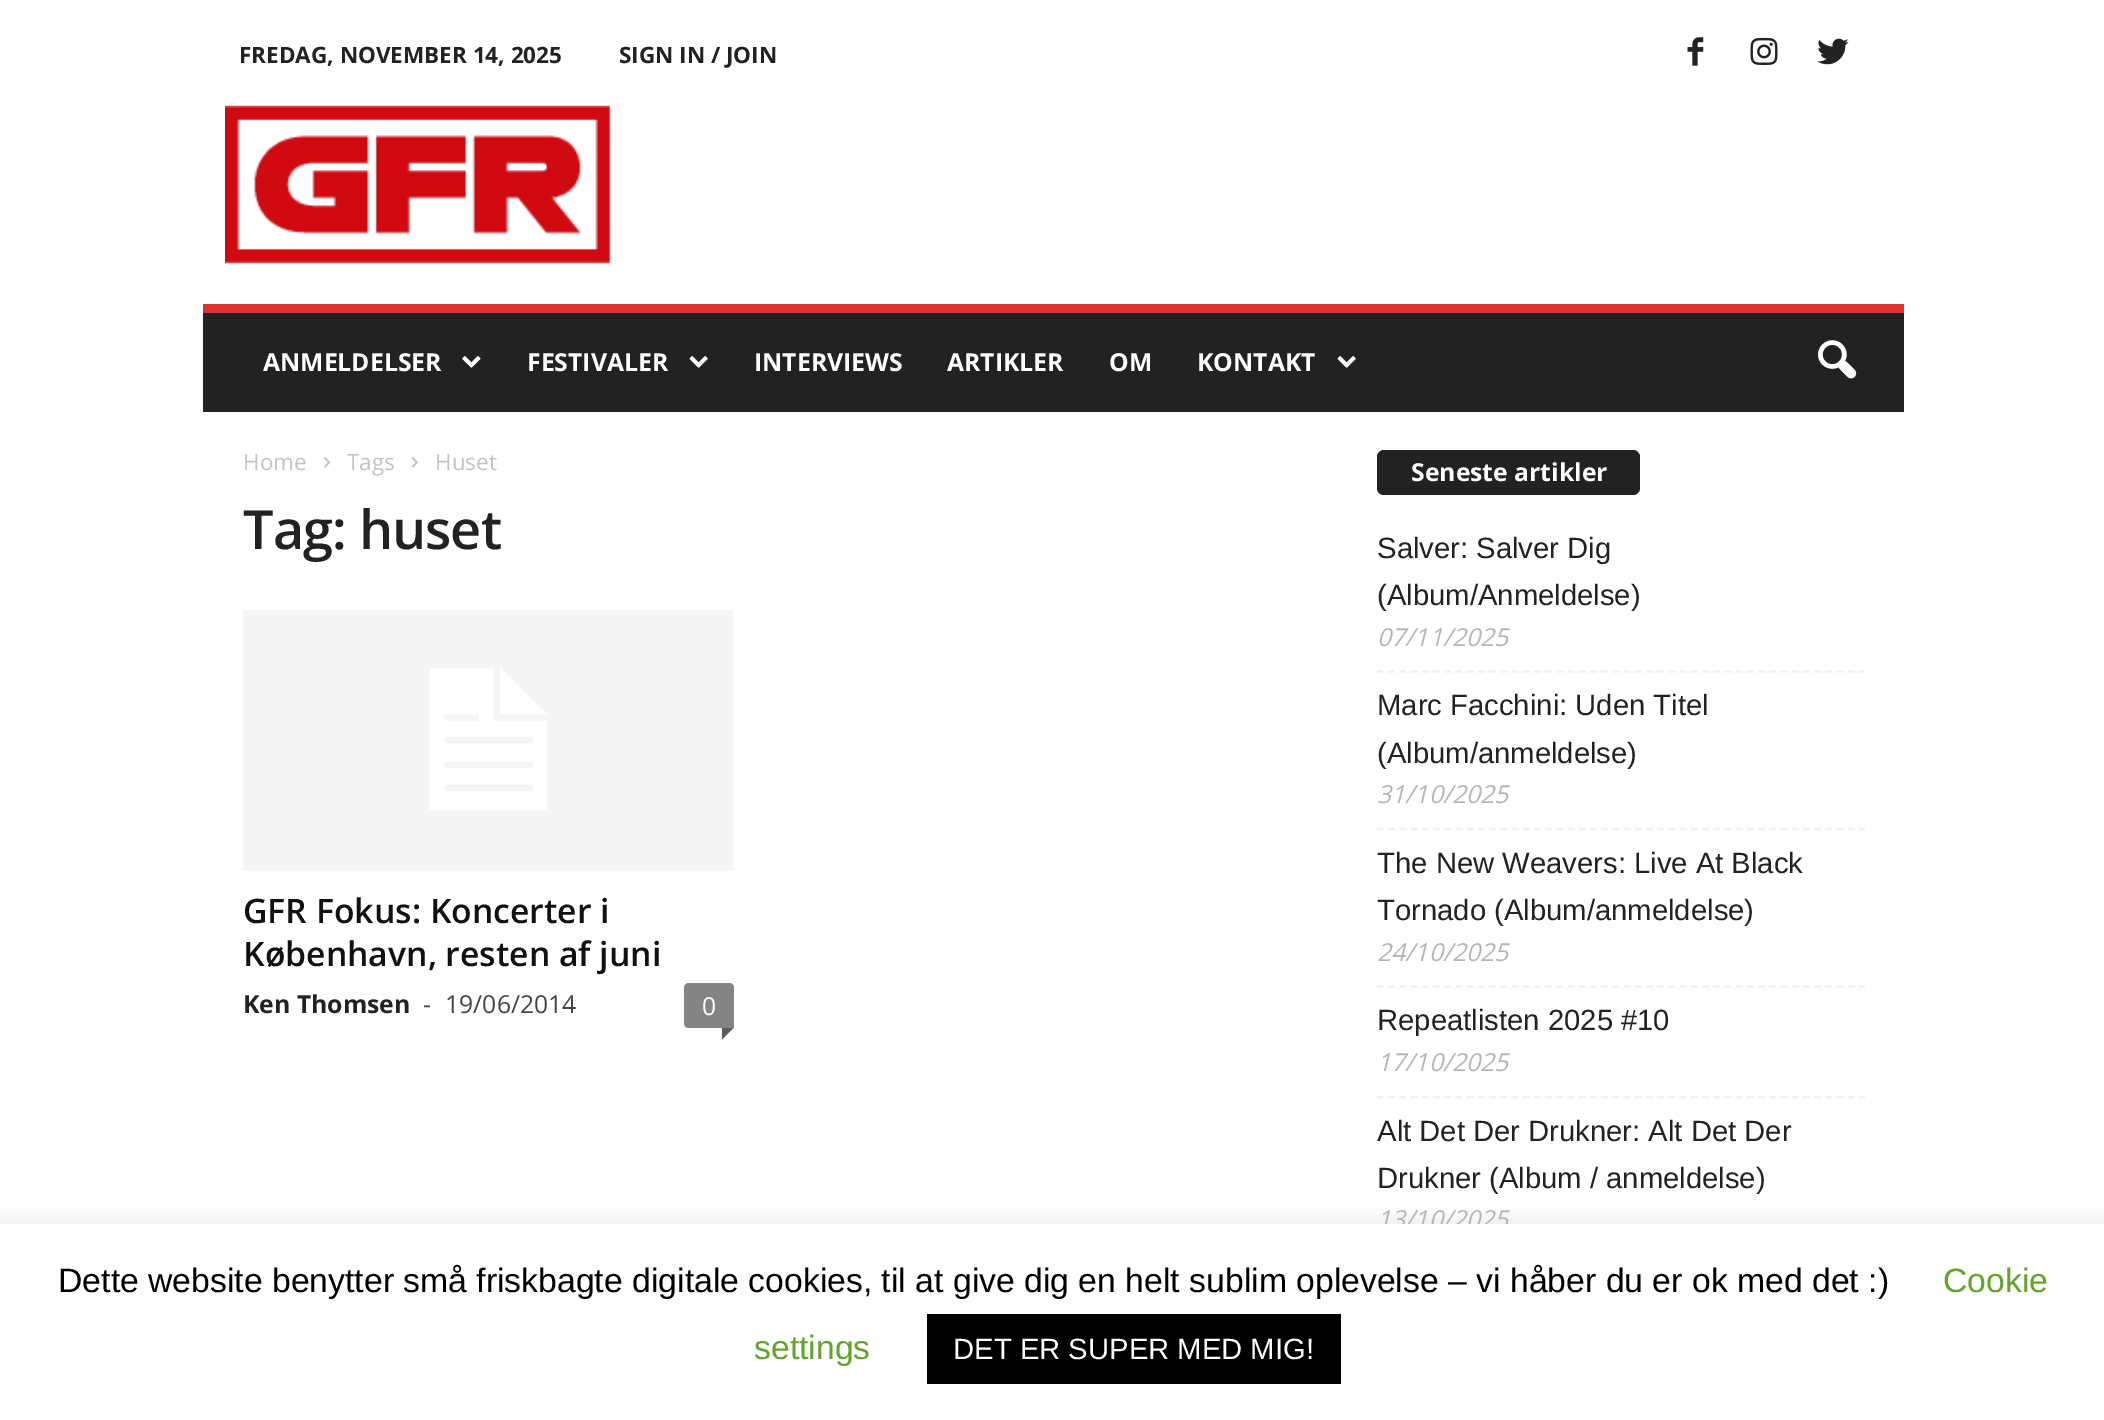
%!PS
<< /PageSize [2104 1420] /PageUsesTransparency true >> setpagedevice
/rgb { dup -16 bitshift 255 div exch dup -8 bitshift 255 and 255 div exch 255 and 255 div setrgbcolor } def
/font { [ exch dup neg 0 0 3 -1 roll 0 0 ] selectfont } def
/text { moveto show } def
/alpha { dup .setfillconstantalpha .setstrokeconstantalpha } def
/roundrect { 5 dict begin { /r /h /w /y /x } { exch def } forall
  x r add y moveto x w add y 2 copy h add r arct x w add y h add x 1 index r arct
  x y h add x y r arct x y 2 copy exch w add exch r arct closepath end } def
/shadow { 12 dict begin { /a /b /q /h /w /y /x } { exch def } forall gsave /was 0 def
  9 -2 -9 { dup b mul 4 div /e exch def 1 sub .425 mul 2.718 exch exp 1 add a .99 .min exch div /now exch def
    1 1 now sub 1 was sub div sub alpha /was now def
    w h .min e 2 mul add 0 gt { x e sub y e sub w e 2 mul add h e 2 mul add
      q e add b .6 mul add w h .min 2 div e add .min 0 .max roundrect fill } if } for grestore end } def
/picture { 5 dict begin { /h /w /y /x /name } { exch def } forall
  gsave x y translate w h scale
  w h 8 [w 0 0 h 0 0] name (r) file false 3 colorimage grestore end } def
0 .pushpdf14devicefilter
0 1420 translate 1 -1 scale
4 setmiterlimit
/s1 { /OpenSans-Bold 22.5 font 16#222222 rgb } def
/s2 { /OpenSans-Bold 24.75 font 16#FFFFFF rgb } def
/s3 { /OpenSans-Regular 22.5 font 16#C3C3C3 rgb } def
/s4 { /OpenSans-SemiBold 33.75 font 16#111111 rgb } def
/s5 { /OpenSans-Bold 24.75 font 16#222222 rgb } def
/s6 { /OpenSans-Regular 24.75 font 16#444444 rgb } def
/s7 { /OpenSans-Regular 24.75 font 16#FFFFFF rgb } def
/s8 { /LiberationSans-Regular 29.25 font 16#222222 rgb } def
/s9 { /OpenSans-Italic 24.75 font 16#B5B5B5 rgb } def
/s10 { /LiberationSans-Regular 33.75 font 16#000000 rgb } def
/s11 { /LiberationSans-Regular 33.75 font 16#62A329 rgb } def
/s12 { /LiberationSans-Regular 29.25 font 16#FFFFFF rgb } def
16#FFFFFF rgb
0 0 2104 1420 rectfill
s1
(FREDAG, NOVEMBER 14, 2025) 239 63 text
(SIGN IN / JOIN) 619 63 text
(pic1.raw) 1687 37 17 29 picture
(pic2.raw) 1750 37 28 28 picture
(pic3.raw) 1817 38 32 27 picture
(pic4.raw) 225 105 386 159 picture
203 313 1701 99 rectfill
16#DD3333 rgb
203 304 1701 9 rectfill
s2
(ANMELDELSER) 263 371 text
(pic5.raw) 462 356 19 12 picture
(FESTIVALER) 527 371 text
(pic6.raw) 689 356 19 12 picture
(INTERVIEWS) 754 371 text
(ARTIKLER) 947 371 text
(OM) 1109 371 text
(KONTAKT) 1197 371 text
(pic6.raw) 1337 356 19 12 picture
(pic7.raw) 1818 340 39 39 picture
s3
(Home) 243 470 text
(pic8.raw) 324 457 6 11 picture
(Tags) 347 470 text
(pic9.raw) 411 457 7 11 picture
(Huset) 435 470 text
/OpenSans-SemiBold 54 font
16#222222 rgb
243 549 moveto -1 0 (Tag: huset) ashow
(pic10.raw) 243 610 491 261 picture
s4
(GFR Fokus: Koncerter i) 243 923 text
(København, resten af juni) 243 966 text
s5
(Ken Thomsen) 243 1013 text
s6
(-) 423 1013 text
(19/06/2014) 445 1013 text
16#848484 rgb
689 983 moveto 729 983 lineto 732 983 734 985 734 988 curveto 734 1028 lineto 689 1028 lineto 686 1028 684 1026 684 1023 curveto 684 988 lineto 684 985 686 983 689 983 curveto closepath fill
s7
(0) 702 1015 text
16#5B5B5B rgb
722 1028 moveto 733.5 1028 lineto 722 1039.5 lineto closepath fill
16#222222 rgb
1377 450 263 45 7 roundrect fill
s2
(Seneste artikler) 1411 481 text
16#F1F1F1 rgb
2.2 setlinewidth
[6.75 4.46] 0 setdash
1377 671.5 moveto 1865 671.5 lineto stroke
s8
(Salver: Salver Dig) 1377 558 text
(\(Album/Anmeldelse\)) 1377 605 text
s9
(07/11/2025) 1377 646 text
16#F1F1F1 rgb
1377 829 moveto 1865 829 lineto stroke
s8
(Marc Facchini: Uden Titel) 1377 715 text
(\(Album/anmeldelse\)) 1377 763 text
s9
(31/10/2025) 1377 803 text
16#F1F1F1 rgb
1377 986.5 moveto 1865 986.5 lineto stroke
s8
(The New Weavers: Live At Black) 1377 873 text
(Tornado \(Album/anmeldelse\)) 1377 920 text
s9
(24/10/2025) 1377 961 text
16#F1F1F1 rgb
1377 1097 moveto 1865 1097 lineto stroke
s8
(Repeatlisten 2025 #10) 1377 1030 text
s9
(17/10/2025) 1377 1071 text
s8
(Alt Det Der Drukner: Alt Det Der) 1377 1141 text
(Drukner \(Album / anmeldelse\)) 1377 1188 text
s9
(13/10/2025) 1377 1228 text
16#ACABAB rgb
0 1222 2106 198 0 11 0.3 shadow
16#FFFFFF rgb
0 1224 2104 196 rectfill
s10
(Dette website benytter små friskbagte digitale cookies, til at give dig en helt sublim oplevelse – vi håber du er ok med det :\)) 58 1292 text
s11
(Cookie) 1943 1292 text
(settings) 754 1359 text
16#000000 rgb
927 1314 414 70 rectfill
s12
(DET ER SUPER MED MIG!) 953 1359 text
.poppdf14devicefilter showpage
